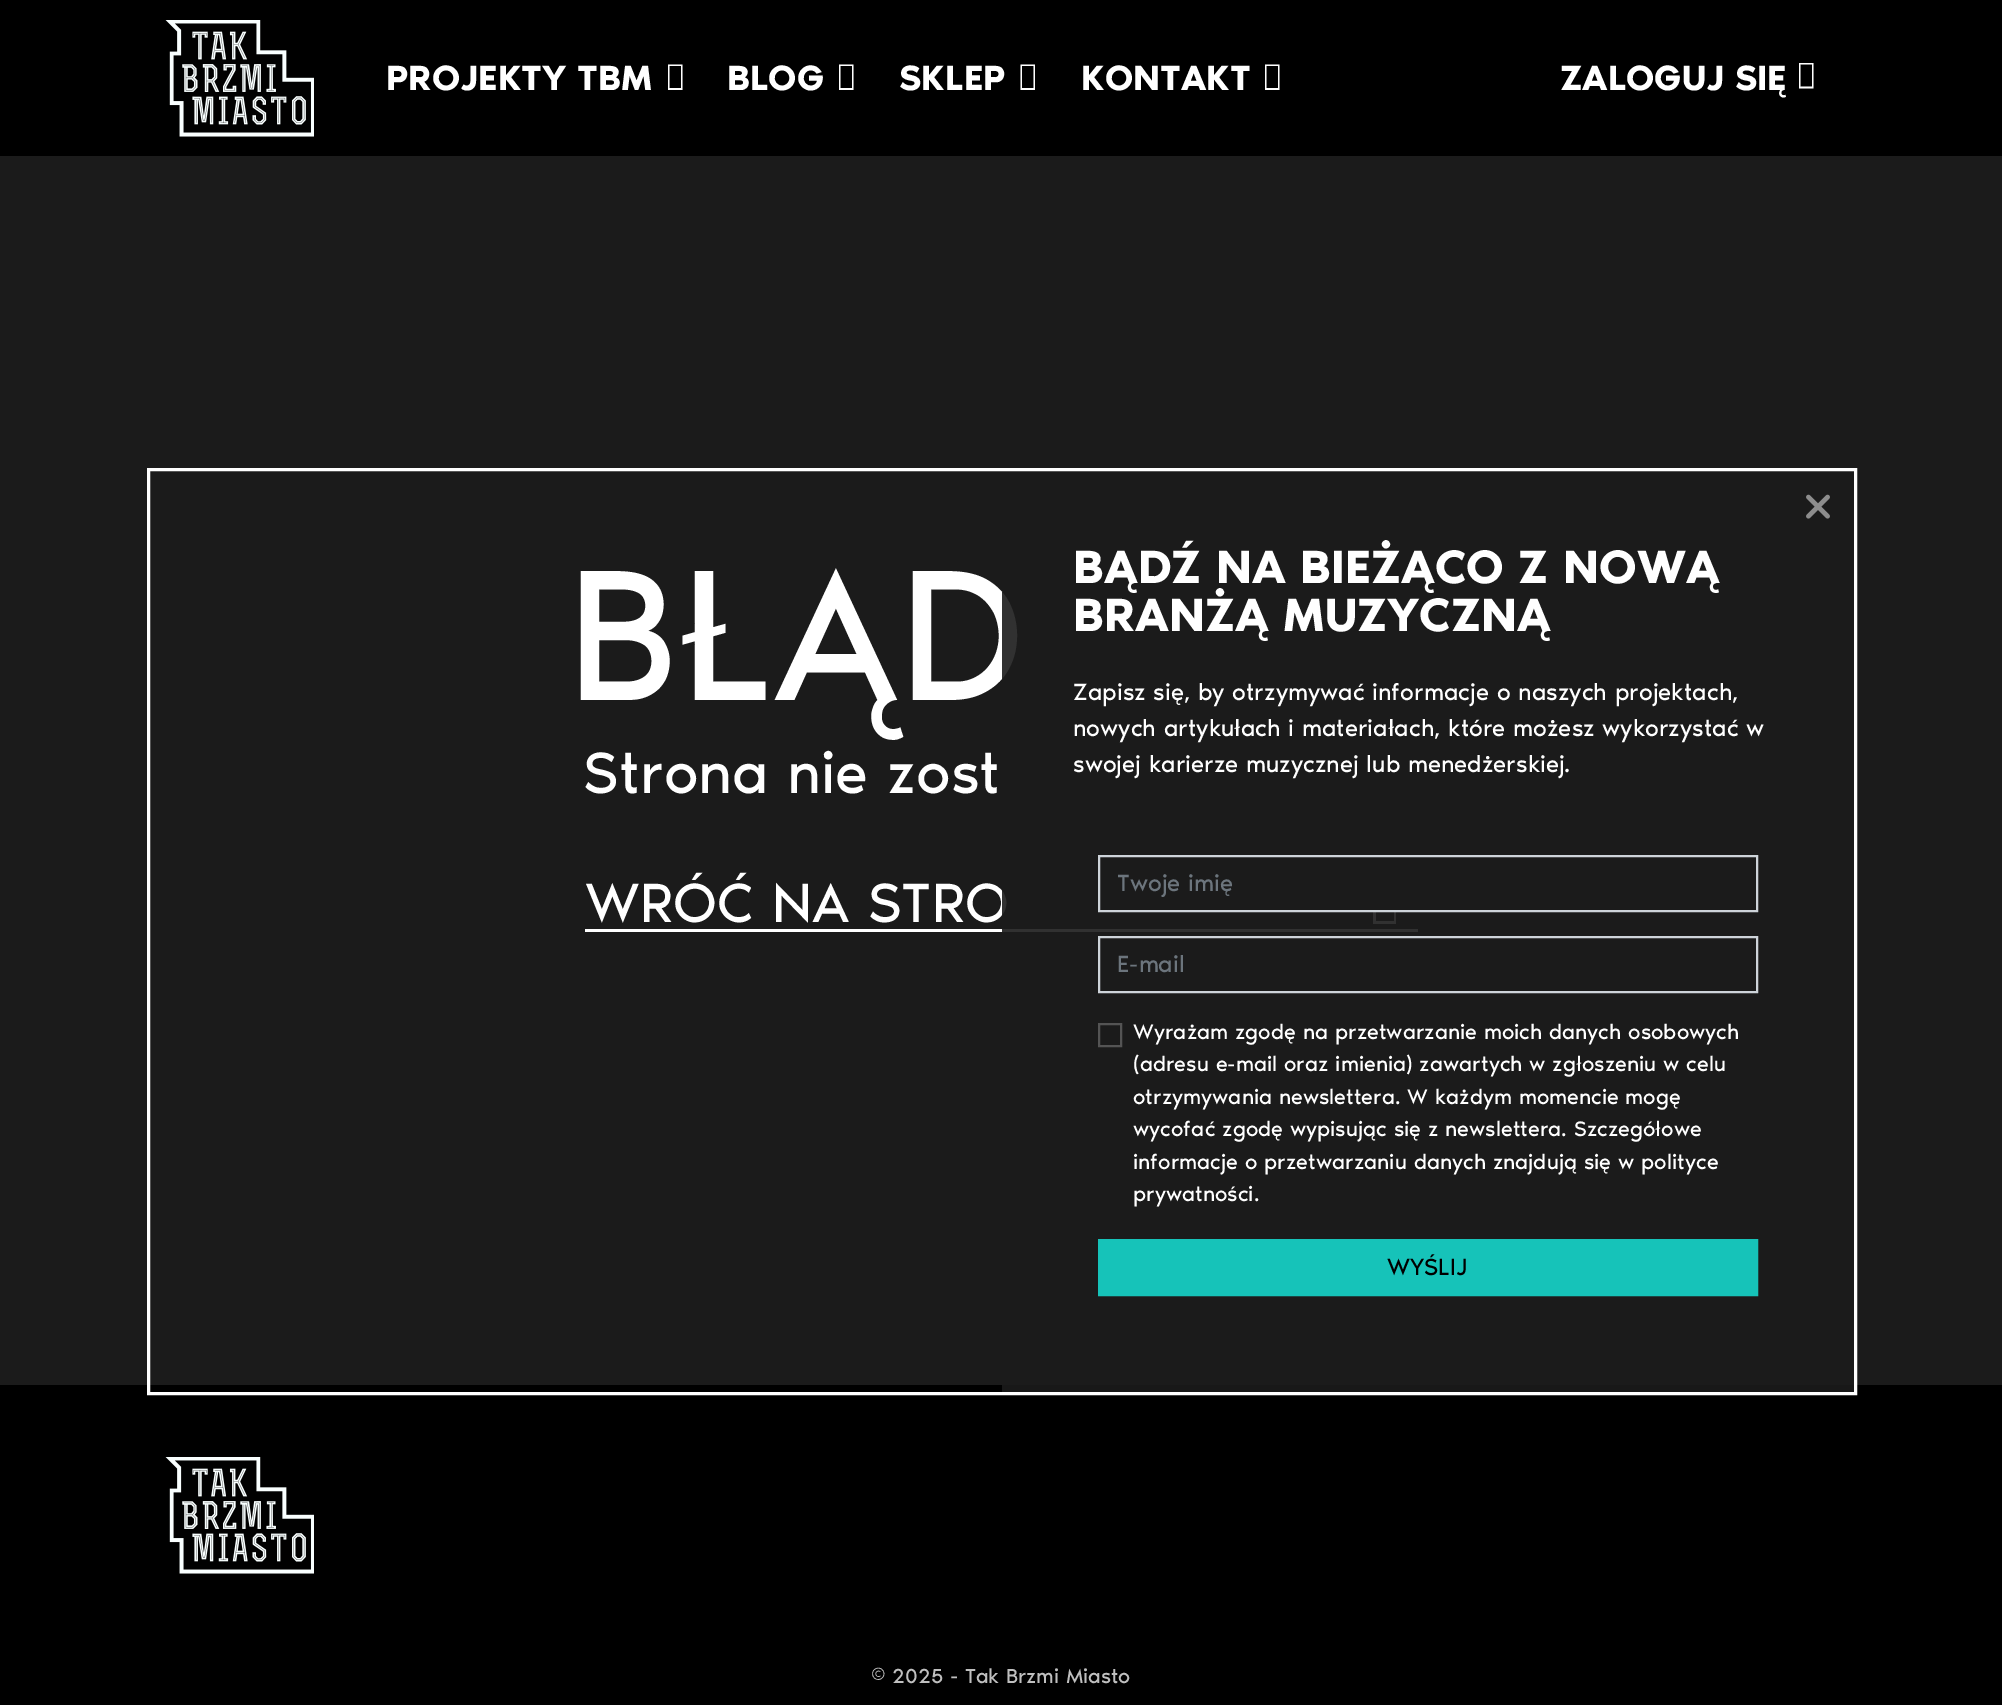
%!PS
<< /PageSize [2002 1705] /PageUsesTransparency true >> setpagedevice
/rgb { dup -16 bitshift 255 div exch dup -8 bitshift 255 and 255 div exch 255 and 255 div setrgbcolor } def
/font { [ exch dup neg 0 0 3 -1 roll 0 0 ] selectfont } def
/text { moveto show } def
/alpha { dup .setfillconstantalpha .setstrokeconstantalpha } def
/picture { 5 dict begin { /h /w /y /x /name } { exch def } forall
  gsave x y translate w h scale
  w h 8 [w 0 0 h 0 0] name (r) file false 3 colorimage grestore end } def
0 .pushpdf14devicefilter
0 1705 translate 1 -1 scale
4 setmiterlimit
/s1 { /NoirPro-SemiBold 36 font 16#FFFFFF rgb } def
/s2 { /NoirPro-Regular 192 font 16#FFFFFF rgb } def
/s3 { /NoirPro-Regular 60 font 16#FFFFFF rgb } def
/s4 { /NoirPro-Regular 57 font 16#FFFFFF rgb } def
/s5 { /NoirPro-SemiBold 48 font 16#FFFFFF rgb } def
/s6 { /NoirPro-Regular 24 font 16#FFFFFF rgb } def
/s7 { /NoirPro-Regular 24 font 16#6C757D rgb } def
/s8 { /NoirPro-Regular 21.6 font 16#FFFFFF rgb } def
/s9 { /NoirPro-Regular 24 font 16#000000 rgb } def
/s10 { /NoirPro-Regular 21 font 16#BFBFBF rgb } def
16#1B1B1B rgb
0 0 2002 1705 rectfill
16#000000 rgb
0 0 2002 156 rectfill
(pic1.raw) 165 20 149 117 picture
s1
(PROJEKTY TBM) 386 90 text
668 90 moveto 668 64.5 lineto 682.5 64.5 lineto 682.5 90 lineto closepath 669.5 88 moveto 681 88 lineto 681 66 lineto 669.5 66 lineto closepath fill
(BLOG) 727 90 text
839 90 moveto 839 64.5 lineto 853.5 64.5 lineto 853.5 90 lineto closepath 840.5 88 moveto 852 88 lineto 852 66 lineto 840.5 66 lineto closepath fill
(SKLEP) 899 90 text
1020.5 90 moveto 1020.5 64.5 lineto 1035 64.5 lineto 1035 90 lineto closepath 1022 88 moveto 1033.5 88 lineto 1033.5 66 lineto 1022 66 lineto closepath fill
(KONTAKT) 1081 90 text
1265 90 moveto 1265 64.5 lineto 1279.5 64.5 lineto 1279.5 90 lineto closepath 1266.5 88 moveto 1278 88 lineto 1278 66 lineto 1266.5 66 lineto closepath fill
(ZALOGUJ SIĘ) 1560 90 text
1799 88.5 moveto 1799 63 lineto 1813.5 63 lineto 1813.5 88.5 lineto closepath 1800.5 86.5 moveto 1812 86.5 lineto 1812 64.5 lineto 1800.5 64.5 lineto closepath fill
s2
(BŁĄD) 567 700 text
s3
(Strona nie zost) 583 793 text
s4
(WRÓĆ NA STRO) 585 922 text
1373 924 moveto 1373 883 lineto 1396 883 lineto 1396 924 lineto closepath 1376 921 moveto 1394 921 lineto 1394 886 lineto 1376 886 lineto closepath fill
585 929 833 3 rectfill
16#000000 rgb
0 1385 2002 320 rectfill
16#FFFFFF rgb
3 setlinewidth
148.5 469.5 1707 924 rectstroke
0.9 alpha
16#1B1B1B rgb
1002 592 852 800 rectfill
1 alpha
(pic2.raw) 1806 494 24 25 picture
s5
(BĄDŹ NA BIEŻĄCO Z NOWĄ) 1073 583 text
(BRANŻĄ MUZYCZNĄ) 1073 631 text
s6
(Zapisz się, by otrzymywać informacje o naszych projektach,) 1073 700 text
(nowych artykułach i materiałach, które możesz wykorzystać w) 1073 736 text
(swojej karierze muzycznej lub menedżerskiej.) 1073 772 text
16#1B1B1B rgb
1373 883 23 27 rectfill
16#CED4DA rgb
2 setlinewidth
1099 856 658 55 rectstroke
gsave
1118 869 621 28 rectclip
s7
(Twoje imię) 1117 891 text
grestore
1099 937 658 55 rectstroke
s7
(E-mail) 1117 972 text
16#545454 rgb
1099 1024 22 22 rectstroke
s8
(Wyrażam zgodę na przetwarzanie moich danych osobowych) 1133 1039 text
(\(adresu e-mail oraz imienia\) zawartych w zgłoszeniu w celu) 1133 1071 text
(otrzymywania newslettera. W każdym momencie mogę) 1133 1104 text
(wycofać zgodę wypisując się z newslettera. Szczegółowe) 1133 1136 text
(informacje o przetwarzaniu danych znajdują się w polityce) 1133 1169 text
(prywatności.) 1133 1201 text
16#16C3B9 rgb
1099 1240 moveto 1757 1240 lineto 1757 1295 lineto 1099 1295 lineto closepath gsave fill grestore
stroke
s9
(WYŚLIJ) 1387 1275 text
(pic1.raw) 165 1457 149 117 picture
s10
(© 2025 - Tak Brzmi Miasto) 871 1683 text
.poppdf14devicefilter showpage
